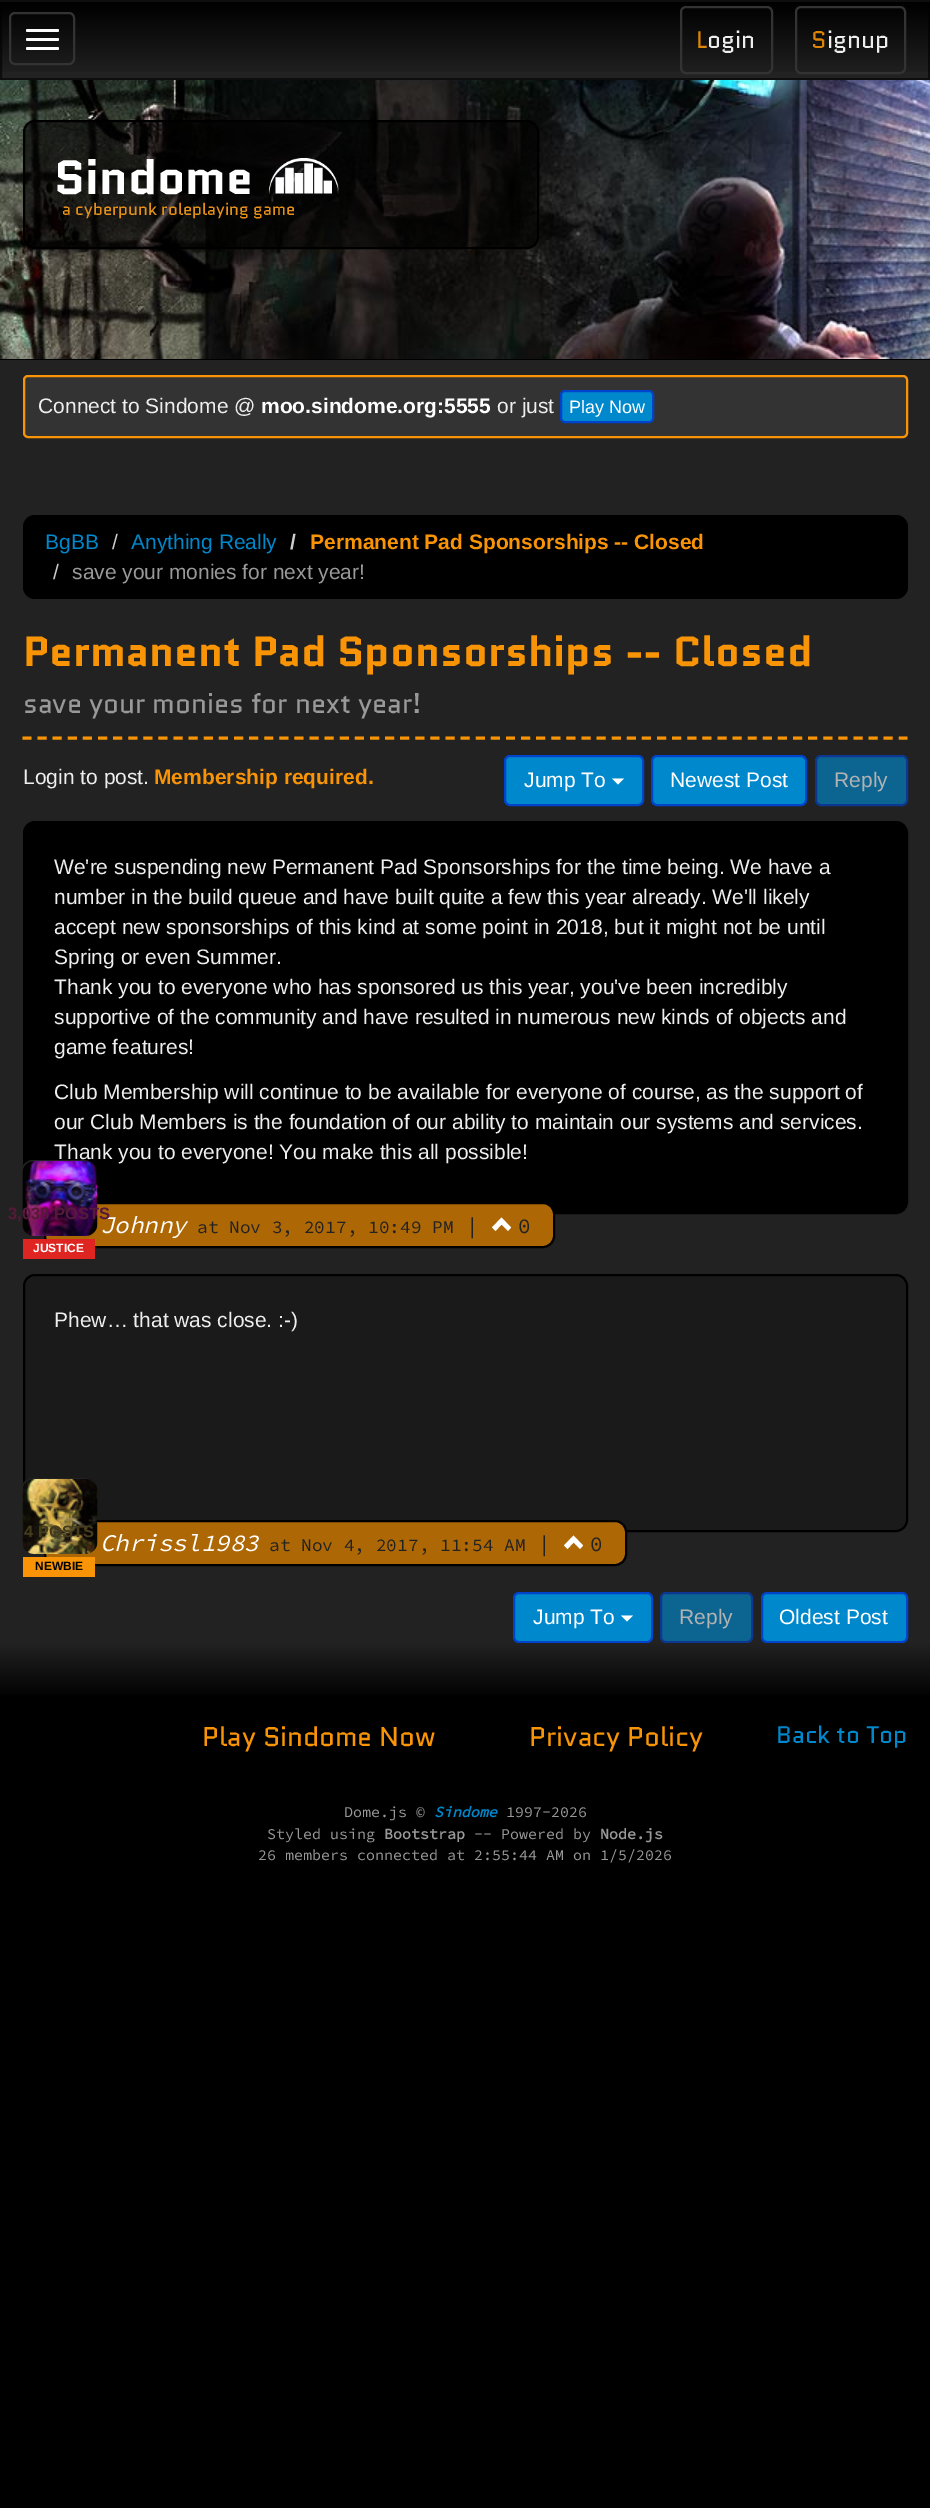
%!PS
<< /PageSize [930 2508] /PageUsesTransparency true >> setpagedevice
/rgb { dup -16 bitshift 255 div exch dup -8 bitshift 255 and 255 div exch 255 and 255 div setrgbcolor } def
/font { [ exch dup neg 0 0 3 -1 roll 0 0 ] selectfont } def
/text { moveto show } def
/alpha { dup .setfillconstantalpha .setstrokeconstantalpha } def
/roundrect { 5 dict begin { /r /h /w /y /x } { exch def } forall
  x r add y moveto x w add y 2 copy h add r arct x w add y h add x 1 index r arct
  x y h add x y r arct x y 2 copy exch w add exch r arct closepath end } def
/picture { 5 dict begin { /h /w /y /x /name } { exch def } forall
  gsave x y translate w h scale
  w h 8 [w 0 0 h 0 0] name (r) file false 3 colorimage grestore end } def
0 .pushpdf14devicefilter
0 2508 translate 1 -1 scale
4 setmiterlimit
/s1 { /Quantico-Regular 24 font 16#DF8505 rgb } def
/s2 { /Quantico-Regular 24 font 16#EEEEEE rgb } def
/s3 { /Quantico-Bold 48 font 16#FFFFFF rgb } def
/s4 { /Quantico-Regular 16.75 font 16#E59119 rgb } def
/s5 { /LiberationSans-Regular 21 font 16#EEEEEE rgb } def
/s6 { /LiberationSans-Bold 21 font 16#FFFFFF rgb } def
/s7 { /LiberationSans-Regular 18 font 16#FFFFFF rgb } def
/s8 { /LiberationSans-Regular 21 font 16#0088CC rgb } def
/s9 { /LiberationSans-Regular 21 font 16#CCCCCC rgb } def
/s10 { /LiberationSans-Bold 21 font 16#CCCCCC rgb } def
/s11 { /LiberationSans-Bold 21 font 16#F89406 rgb } def
/s12 { /LiberationSans-Regular 21 font 16#999999 rgb } def
/s13 { /Quantico-Bold 42 font 16#F89406 rgb } def
/s14 { /Quantico-Regular 27.25 font 16#999999 rgb } def
/s15 { /LiberationSans-Regular 21 font 16#FFFFFF rgb } def
/s16 { /LiberationSans-Regular 21 font 16#B2B2B2 rgb } def
/s17 { /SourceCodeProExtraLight-ExtraLightItalic 24 font 16#FFFFFF rgb } def
/s18 { /LiberationSans-Bold 16.5 font 16#55193A rgb } def
/s19 { /LiberationSans-Bold 12 font 16#FFFFFF rgb } def
/s20 { /SourceCodeProExtraLight-ExtraLight 17.8 font 16#222222 rgb } def
/s21 { /SourceCodeProExtraLight-ExtraLight 21 font 16#222222 rgb } def
/s22 { /LiberationSans-Bold 16.5 font 16#453C1E rgb } def
/s23 { /LiberationSans-Bold 12 font 16#000000 rgb } def
/s24 { /Quantico-Regular 27 font 16#F89406 rgb } def
/s25 { /Quantico-Regular 24 font 16#0088CC rgb } def
/s26 { /SourceCodeProExtraLight-ExtraLight 15 font 16#999999 rgb } def
/s27 { /SourceCodeProExtraLight-BoldItalic 15 font 16#0088CC rgb } def
/s28 { /SourceCodeProExtraLight-Bold 15 font 16#999999 rgb } def
16#000000 rgb
0 0 930 2508 rectfill
16#222222 rgb
0 0 930 80 rectfill
gsave 0 2 moveto 930 2 lineto 930 72 lineto 0 72 lineto closepath clip newpath
<< /ShadingType 2 /ColorSpace /DeviceRGB /Coords [465 1.5 465 78] /Extend [true true] /Function << /FunctionType 2 /Domain [0 1] /C0 [0 0 0] /C1 [0.133 0.133 0.133] /N 1 >> >> shfill grestore
0.6 alpha
16#000000 rgb
2 setlinewidth
1 1 928 78 rectstroke
1 alpha
16#333333 rgb
10 13 64 51 5 roundrect stroke
16#FFFFFF rgb
26 29 33 3 1.5 roundrect fill
26 38 33 3 1.5 roundrect fill
26 47 33 3 1.5 roundrect fill
16#333333 rgb
681 7 91 66 5 roundrect stroke
s1
(L) 696 48 text
s2
(ogin) 707 48 text
16#333333 rgb
796 7 109 66 5 roundrect stroke
s1
(S) 811 48 text
s2
(ignup) 827 48 text
(pic1.raw) 0 80 930 279 picture
0.6 alpha
16#000000 rgb
24 121 514 127 11 roundrect fill
1 alpha
24 121 514 127 11 roundrect stroke
s3
(Sindome) 54 194 text
(pic2.raw) 269 158 70 36 picture
s4
(a cyberpunk roleplaying game) 62 215 text
16#222222 rgb
0 360 930 1283 rectfill
16#333333 rgb
23 375 885 63 5 roundrect fill
16#303030 rgb
27 378 moveto 903 378 lineto 905 378 906 379 906 381 curveto 906 379 905 377 903 377 curveto 27 377 lineto 25 377 24 379 24 381 curveto 24 379 25 378 27 378 curveto closepath fill
16#F89406 rgb
24 376 883 61 4 roundrect stroke
s5
(Connect to Sindome @) 38 413 text
s6
(moo.sindome.org:5555) 261 413 text
s5
(or just) 497 413 text
16#0088CC rgb
561 391 92 31 4 roundrect gsave fill grestore
16#0044CC rgb
stroke
s7
(Play Now) 569 413 text
16#000000 rgb
23 515 885 84 12 roundrect fill
s8
(BgBB) 45 549 text
s9
(/) 112 549 text
s8
(Anything Really) 131 549 text
s10
(/) 290 549 text
s11
(Permanent Pad Sponsorships -- Closed) 310 549 text
s9
(/) 53 579 text
s12
(save your monies for next year!) 72 579 text
s13
(Permanent Pad Sponsorships -- Closed) 23 666 text
s14
(save your monies for next year!) 23 713 text
16#F89406 rgb
3 setlinewidth
[9 6.11] 0 setdash
22.5 738 moveto 907.5 738 lineto stroke
s5
(Login to post.) 23 784 text
s11
(Membership required.) 154 784 text
16#0088CC rgb
505 756 138 49 5 roundrect gsave fill grestore
16#0044CC rgb
2 setlinewidth
[] 0 setdash
stroke
s15
(Jump To) 524 787 text
612 778.5 moveto 624 778.5 lineto 618 784.5 lineto closepath fill
16#0088CC rgb
652 756 154 49 5 roundrect gsave fill grestore
16#0044CC rgb
stroke
s15
(Newest Post) 670 787 text
16#0C6491 rgb
816 756 91 49 5 roundrect gsave fill grestore
16#0C3891 rgb
stroke
s16
(Reply) 834 787 text
16#000000 rgb
24 822 883 391 11 roundrect gsave fill grestore
stroke
s5
(We're suspending new Permanent Pad Sponsorships for the time being. We have a) 54 874 text
(number in the build queue and have built quite a few this year already. We'll likely) 54 904 text
(accept new sponsorships of this kind at some point in 2018, but it might not be until) 54 934 text
(Spring or even Summer.) 54 964 text
(Thank you to everyone who has sponsored us this year, you've been incredibly) 54 994 text
(supportive of the community and have resulted in numerous new kinds of objects and) 54 1024 text
(game features!) 54 1054 text
(Club Membership will continue to be available for everyone of course, as the support of) 54 1099 text
(our Club Members is the foundation of our ability to maintain our systems and services.) 54 1129 text
(Thank you to everyone! You make this all possible!) 54 1159 text
16#AD6704 rgb
45 1203 509 44 11 roundrect gsave fill grestore
16#000000 rgb
stroke
16#222222 rgb
22 1161 73 73 11 roundrect stroke
(pic3.raw) 22 1161 76 75 picture
16#DF2522 rgb
23 1239 72 20 rectfill
s17
(Johnny) 100 1233 text
s18
(3,038 POSTS) 8 1219 text
s19
(JUSTICE) 33 1252 text
s20
(at Nov 3, 2017, 10:49 PM) 197 1233 text
s21
(|) 466 1233 text
16#FFFFFF rgb
511 1227.5 moveto 508 1231 lineto 501.5 1224.5 lineto 495.5 1231 lineto 492 1227.5 lineto 501.5 1217.5 lineto closepath fill
s21
(0) 518 1233 text
16#1A1A1A rgb
24 1275 883 256 11 roundrect gsave fill grestore
16#000000 rgb
stroke
s5
(Phew… that was close. :-\)) 54 1327 text
16#AD6704 rgb
45 1521 581 44 11 roundrect gsave fill grestore
16#000000 rgb
stroke
16#222222 rgb
22 1479 73 73 11 roundrect stroke
(pic4.raw) 22 1479 76 75 picture
16#F89406 rgb
23 1557 72 20 rectfill
s22
(4 POSTS) 24 1537 text
s23
(NEWBIE) 35 1570 text
s17
(Chrissl1983) 100 1551 text
s20
(at Nov 4, 2017, 11:54 AM) 269 1551 text
s21
(|) 538 1551 text
16#FFFFFF rgb
583 1545.5 moveto 580 1549 lineto 573.5 1542.5 lineto 567.5 1549 lineto 564 1545.5 lineto 573.5 1535.5 lineto closepath fill
s21
(0) 590 1551 text
16#0088CC rgb
514 1593 138 49 5 roundrect gsave fill grestore
16#0044CC rgb
stroke
s15
(Jump To) 533 1624 text
621 1615.5 moveto 633 1615.5 lineto 627 1621.5 lineto closepath fill
16#0C6491 rgb
661 1593 91 49 5 roundrect gsave fill grestore
16#0C3891 rgb
stroke
s16
(Reply) 679 1624 text
16#0088CC rgb
762 1593 145 49 5 roundrect gsave fill grestore
16#0044CC rgb
stroke
s15
(Oldest Post) 779 1624 text
gsave 0 1643 moveto 930 1643 lineto 930 1695 lineto 0 1695 lineto closepath clip newpath
<< /ShadingType 2 /ColorSpace /DeviceRGB /Coords [465 1643 465 1868] /Extend [true true] /Function << /FunctionType 3 /Domain [0 1] /Functions [<< /FunctionType 2 /Domain [0 1] /C0 [0.133 0.133 0.133] /C1 [0 0 0] /N 1 >> << /FunctionType 2 /Domain [0 1] /C0 [0 0 0] /C1 [0 0 0] /N 1 >>] /Bounds [0.25] /Encode [0 1 0 1] >> >> shfill grestore
s24
(Play Sindome Now) 202 1746 text
(Privacy Policy) 529 1746 text
s25
(Back to Top) 776 1743 text
s26
(Dome.js ©) 344 1817 text
s27
(Sindome) 434 1817 text
s26
(1997-2026) 506 1817 text
(Styled using) 267 1839 text
s28
(Bootstrap) 384 1839 text
s26
(-- Powered by) 474 1839 text
s28
(Node.js) 600 1839 text
s26
(26 members connected at 2:55:44 AM on 1/5/2026) 258 1860 text
.poppdf14devicefilter showpage
